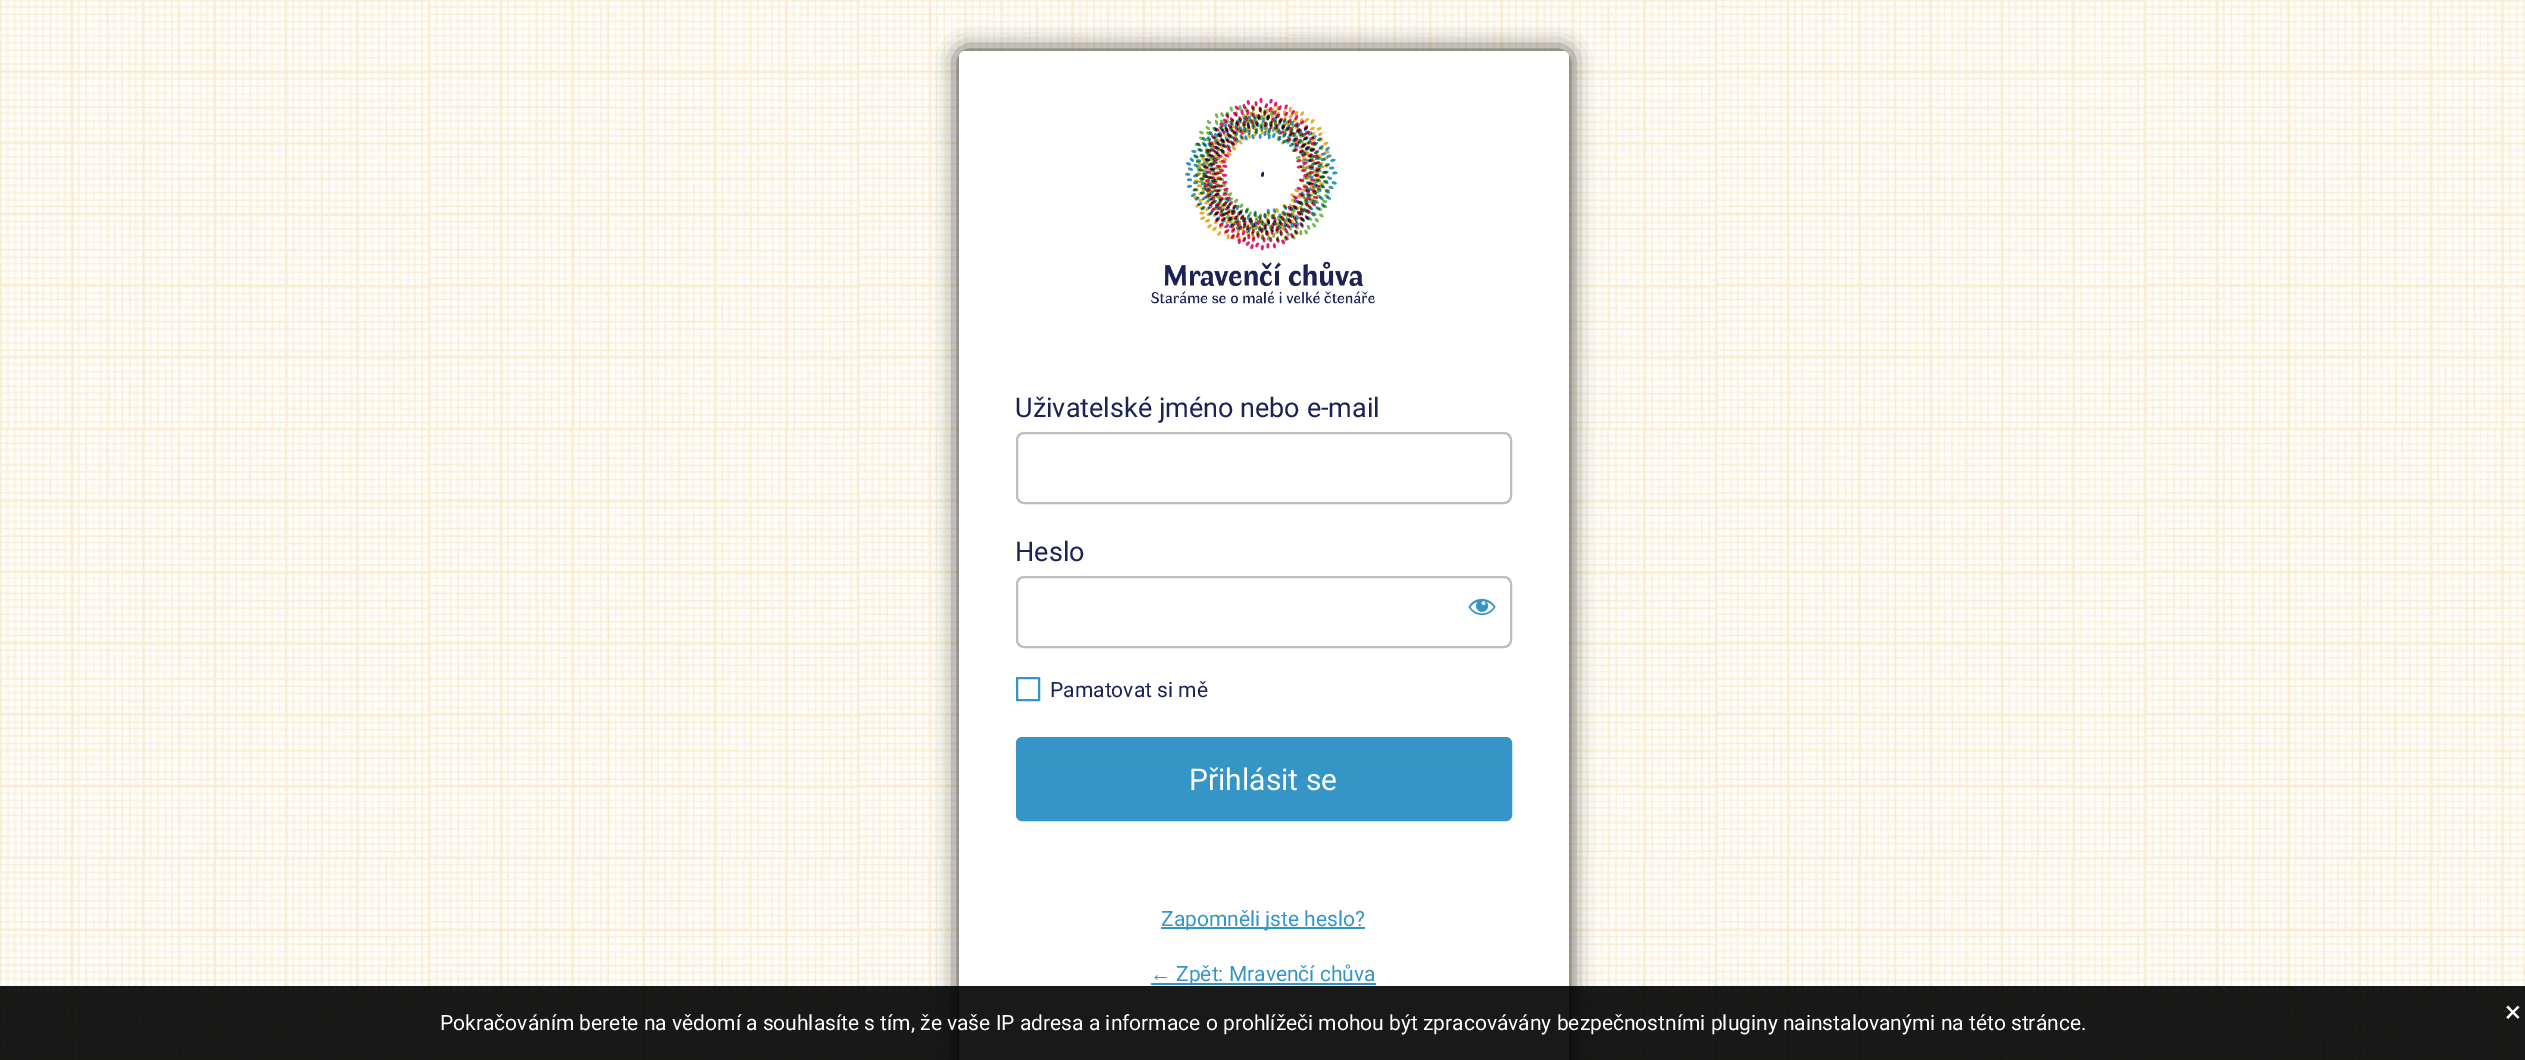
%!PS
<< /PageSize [2525 1060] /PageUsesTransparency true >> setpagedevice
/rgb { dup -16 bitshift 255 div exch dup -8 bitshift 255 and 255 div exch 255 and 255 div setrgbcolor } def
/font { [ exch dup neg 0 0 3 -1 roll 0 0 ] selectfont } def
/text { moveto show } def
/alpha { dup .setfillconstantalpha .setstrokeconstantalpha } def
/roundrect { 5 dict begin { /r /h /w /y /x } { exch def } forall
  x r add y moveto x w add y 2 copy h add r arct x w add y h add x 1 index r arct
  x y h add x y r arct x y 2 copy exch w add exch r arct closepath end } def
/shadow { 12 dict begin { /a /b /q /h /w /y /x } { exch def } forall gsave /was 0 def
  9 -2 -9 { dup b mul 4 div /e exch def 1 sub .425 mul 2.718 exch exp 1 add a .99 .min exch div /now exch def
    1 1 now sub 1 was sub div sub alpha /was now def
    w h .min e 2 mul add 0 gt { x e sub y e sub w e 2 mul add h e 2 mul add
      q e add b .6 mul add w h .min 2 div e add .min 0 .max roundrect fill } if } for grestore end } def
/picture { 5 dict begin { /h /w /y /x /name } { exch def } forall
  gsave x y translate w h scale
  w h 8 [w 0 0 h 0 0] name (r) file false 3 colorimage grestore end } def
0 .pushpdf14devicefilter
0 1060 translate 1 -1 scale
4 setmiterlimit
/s1 { /Roboto-Regular 27 font 16#192356 rgb } def
/s2 { /Roboto-Regular 21 font 16#192356 rgb } def
/s3 { /Roboto-Regular 30 font 16#FFFFFF rgb } def
/s4 { /Roboto-Regular 21 font 16#3495C6 rgb } def
/s5 { /LiberationSans-Regular 21 font 16#3495C6 rgb } def
/s6 { /Roboto-Regular 21 font 16#FFFFFF rgb } def
16#FFFFFF rgb
0 0 2525 1060 rectfill
(pic1.raw) 0 0 2525 1060 picture
16#000000 rgb
959 51 610 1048 6 11 0.8 shadow
16#FFFFFF rgb
959 51 610 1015 6 roundrect fill
(pic2.raw) 1151 97 224 207 picture
s1
(Uživatelské jméno nebo e-mail) 1015 417 text
16#BDBDBD rgb
2 setlinewidth
1017 433 494 70 7 roundrect stroke
s1
(Heslo) 1015 561 text
16#BDBDBD rgb
1017 577 494 70 7 roundrect stroke
(pic3.raw) 1468 598 28 18 picture
16#3495C6 rgb
1017 678 22 22 rectstroke
s2
(Pamatovat si mě) 1050 697 text
16#3495C6 rgb
1017 738 494 82 5 roundrect gsave fill grestore
stroke
s3
(Přihlásit se) 1189 790 text
16#3495C6 rgb
1161 927 204 2 rectfill
s4
(Zapomněli jste heslo?) 1161 926 text
s5
(←) 1150 981 text
1151 983 225 2 rectfill
s4
(Zpět: Mravenčí chůva) 1176 981 text
0.9 alpha
16#000000 rgb
0 986 2525 74 rectfill
1 alpha
s3
(×) 2505 1022 text
s6
(Pokračováním berete na vědomí a souhlasíte s tím, že vaše IP adresa a informace o prohlížeči mohou být zpracovávány bezpečnostními pluginy nainstalovanými na této stránce.) 440 1030 text
.poppdf14devicefilter showpage
